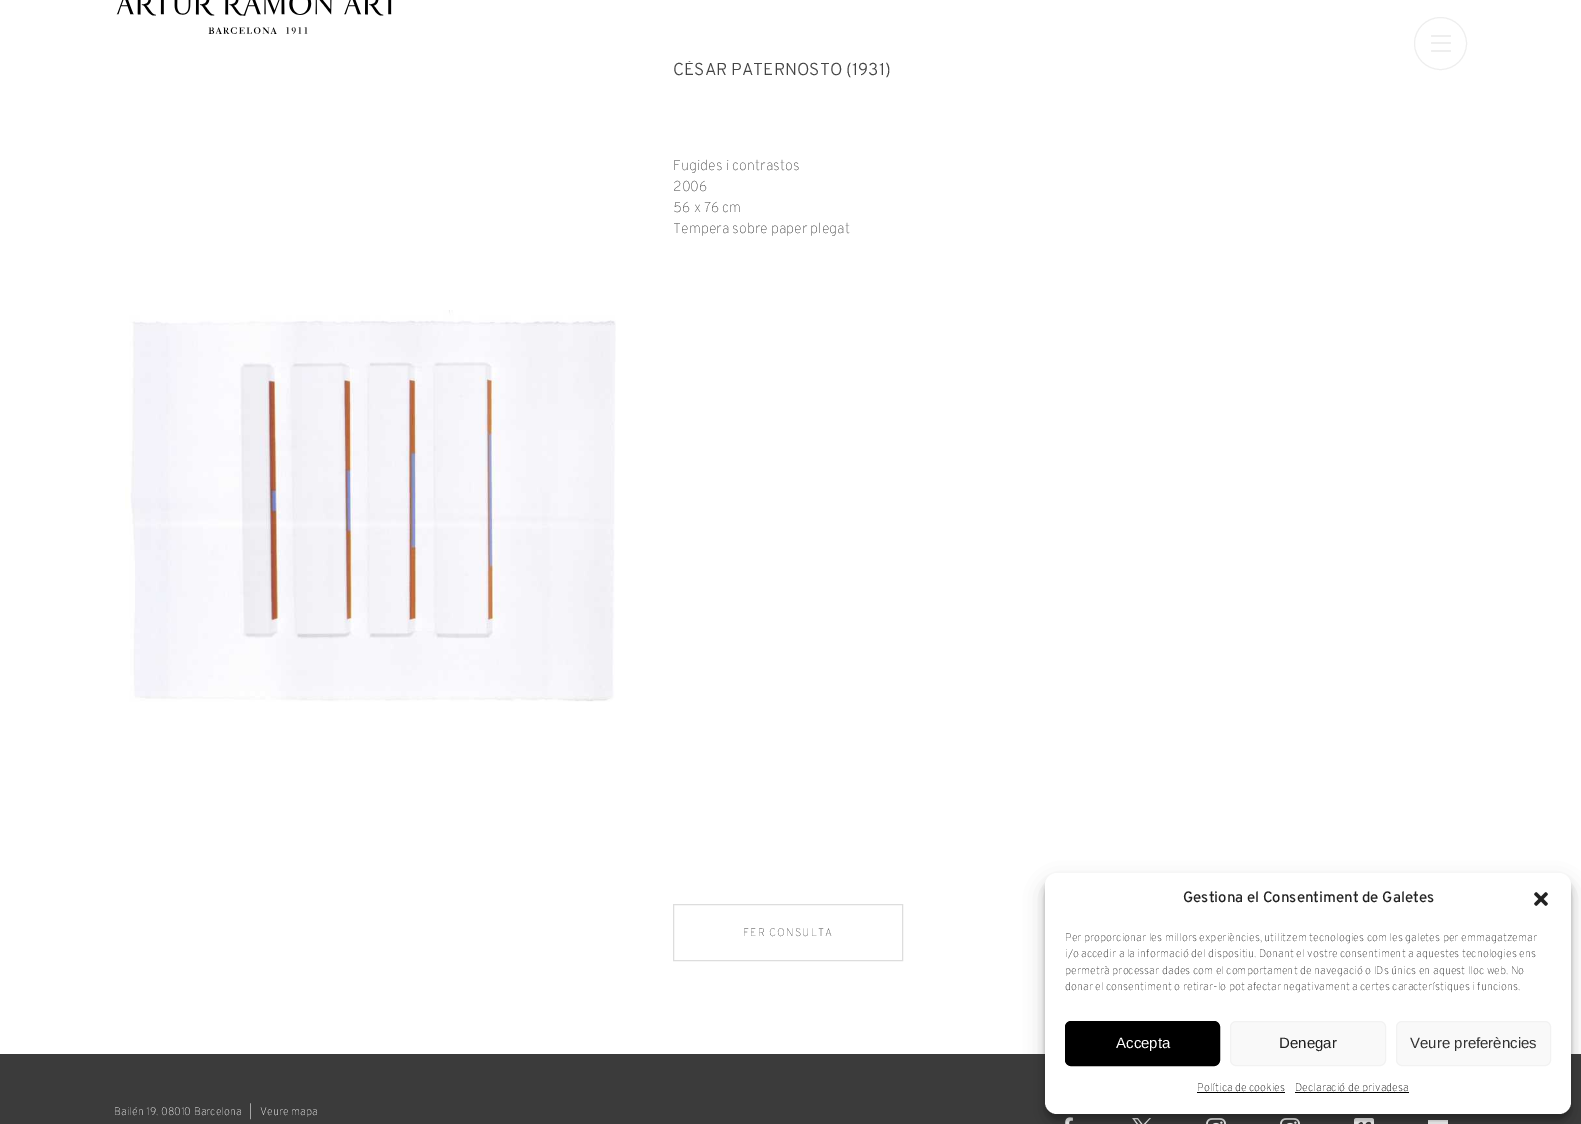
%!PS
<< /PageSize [1581 1124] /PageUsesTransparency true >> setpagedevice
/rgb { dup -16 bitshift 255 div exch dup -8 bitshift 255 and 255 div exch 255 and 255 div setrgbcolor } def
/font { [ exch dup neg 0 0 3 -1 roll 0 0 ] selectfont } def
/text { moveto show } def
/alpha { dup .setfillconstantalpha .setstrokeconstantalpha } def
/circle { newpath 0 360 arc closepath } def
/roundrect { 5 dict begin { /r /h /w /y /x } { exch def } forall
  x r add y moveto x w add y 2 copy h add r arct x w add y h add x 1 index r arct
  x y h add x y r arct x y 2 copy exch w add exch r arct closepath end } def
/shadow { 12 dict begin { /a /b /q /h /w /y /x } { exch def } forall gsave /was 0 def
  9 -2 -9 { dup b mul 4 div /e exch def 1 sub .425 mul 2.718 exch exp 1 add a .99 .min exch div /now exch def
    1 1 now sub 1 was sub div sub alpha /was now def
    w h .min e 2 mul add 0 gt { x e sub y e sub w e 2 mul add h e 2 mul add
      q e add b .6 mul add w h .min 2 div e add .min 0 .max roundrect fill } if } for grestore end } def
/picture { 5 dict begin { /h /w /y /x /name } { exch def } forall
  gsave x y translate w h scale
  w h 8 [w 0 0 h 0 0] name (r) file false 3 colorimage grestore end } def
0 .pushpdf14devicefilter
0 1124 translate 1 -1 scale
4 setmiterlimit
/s1 { /Overpass-Light 17.25 font 16#444444 rgb } def
/s2 { /Overpass-Thin 14.4 font 16#444444 rgb } def
/s3 { /Overpass-Medium 15 font 16#222222 rgb } def
/s4 { /Overpass-Thin 11 font 16#222222 rgb } def
/s5 { /LiberationSans-Regular 15 font 16#FFFFFF rgb } def
/s6 { /LiberationSans-Regular 15 font 16#222222 rgb } def
/s7 { /LiberationSans-Regular 15 font 16#333333 rgb } def
/s8 { /Overpass-Thin 11 font 16#000000 rgb } def
/s9 { /Overpass-Thin 11 font 16#FFFFFF rgb } def
16#FFFFFF rgb
0 0 1581 1124 rectfill
(pic1.raw) 116 0 276 34 picture
16#EEEEEE rgb
1440.5 43.5 26 circle stroke
1431 42 20 2 1 roundrect fill
1431 35 20 2 1 roundrect fill
1431 50 20 2 1 roundrect fill
(pic2.raw) 125 310 491 392 picture
gsave
673 61 794 96 rectclip
s1
(CÉSAR PATERNOSTO \(1931\)) 673 75 text
grestore
s2
(Fugides i contrastos) 673 170 text
(2006) 673 191 text
(56 x 76 cm) 673 212 text
(Tempera sobre paper plegat) 673 233 text
16#DDDDDD rgb
673.5 904.5 229 56 rectstroke
/Overpass-Thin 11 font
16#444444 rgb
743 936 moveto 1.1 0 (FER CONSULTA) ashow
16#3B3B3B rgb
0 1054 1581 70 rectfill
(pic4.raw) 1065 1117 8 7 picture
(pic5.raw) 1132 1118 19 6 picture
(pic6.raw) 1206 1118 20 6 picture
(pic6.raw) 1280 1118 20 6 picture
(pic7.raw) 1354 1118 20 6 picture
16#FFFFFF rgb
1428 1120 20 4 rectfill
16#000000 rgb
1045 879 526 241 12 3 0.23 shadow
1045 883 526 241 12 10 0.19 shadow
16#FFFFFF rgb
1045 873 526 241 12 roundrect fill
s3
(Gestiona el Consentiment de Galetes) 1183 902 text
(pic3.raw) 1534 892 14 14 picture
s4
(Per proporcionar les millors experiències, utilitzem tecnologies com les galetes per emmagatzemar) 1065 941 text
(i/o accedir a la informació del dispositiu. Donant el vostre consentiment a aquestes tecnologies ens) 1065 957 text
(permetrà processar dades com el comportament de navegació o IDs únics en aquest lloc web. No) 1065 974 text
(donar el consentiment o retirar-lo pot afectar negativament a certes característiques i funcions.) 1065 990 text
16#000000 rgb
1065.5 1021.5 154 44 5.5 roundrect gsave fill grestore
stroke
s5
(Accepta) 1116 1048 text
16#F9F9F9 rgb
1230.5 1021.5 155 44 5.5 roundrect gsave fill grestore
16#F2F2F2 rgb
stroke
s6
(Denegar) 1279 1048 text
16#F9F9F9 rgb
1396.5 1021.5 154 44 5.5 roundrect gsave fill grestore
16#F2F2F2 rgb
stroke
s7
(Veure preferències) 1410 1048 text
s8
(Política de cookies) 1197 1091 text
1197 1092 88 1 rectfill
1295 1092 114 1 rectfill
(Declaració de privadesa) 1295 1091 text
s9
(Bailén 19. 08010 Barcelona   |) 114 1115 text
(Veure mapa) 260 1115 text
.poppdf14devicefilter showpage
